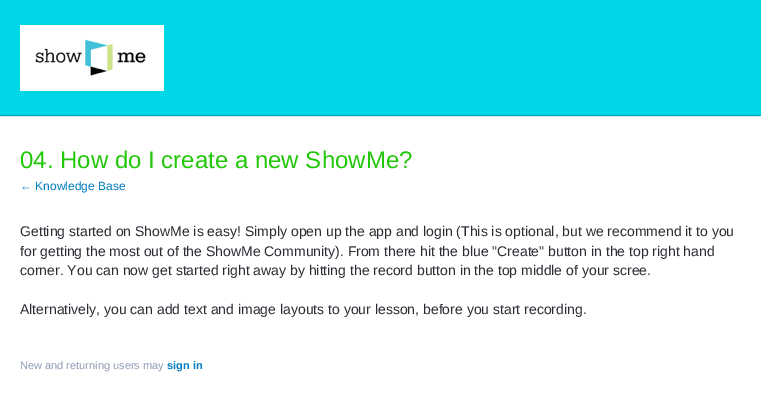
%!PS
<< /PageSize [761 402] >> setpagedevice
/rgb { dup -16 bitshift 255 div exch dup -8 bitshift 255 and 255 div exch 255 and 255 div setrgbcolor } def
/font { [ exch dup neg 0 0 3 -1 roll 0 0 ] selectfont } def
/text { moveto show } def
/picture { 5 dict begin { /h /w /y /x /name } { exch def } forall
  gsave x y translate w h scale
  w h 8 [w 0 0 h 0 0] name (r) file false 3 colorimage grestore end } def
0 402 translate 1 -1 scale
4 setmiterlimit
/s1 { /LiberationSans-Regular 24 font 16#21C708 rgb } def
/s2 { /LiberationSans-Regular 12 font 16#007DBF rgb } def
/s3 { /LiberationSans-Regular 14 font 16#292C33 rgb } def
/s4 { /LiberationSans-Regular 11 font 16#8F9BB3 rgb } def
/s5 { /LiberationSans-Bold 11 font 16#007DBF rgb } def
16#FFFFFF rgb
0 0 761 402 rectfill
16#00D7E6 rgb
0 0 761 115 rectfill
16#00A1AD rgb
0 115 761 1 rectfill
(pic1.raw) 20 25 144 66 picture
16#E3E8F2 rgb
0 116 761 1 rectfill
s1
(04. How do I create a new ShowMe?) 20 168 text
s2
(← Knowledge Base) 20 190 text
s3
(Getting started on ShowMe is easy! Simply open up the app and login \(This is optional, but we recommend it to you) 20 236 text
(for getting the most out of the ShowMe Community\). From there hit the blue "Create" button in the top right hand) 20 256 text
(corner. You can now get started right away by hitting the record button in the top middle of your scree.) 20 275 text
(Alternatively, you can add text and image layouts to your lesson, before you start recording.) 20 314 text
s4
(New and returning users may) 20 369 text
s5
(sign in) 167 369 text
showpage
